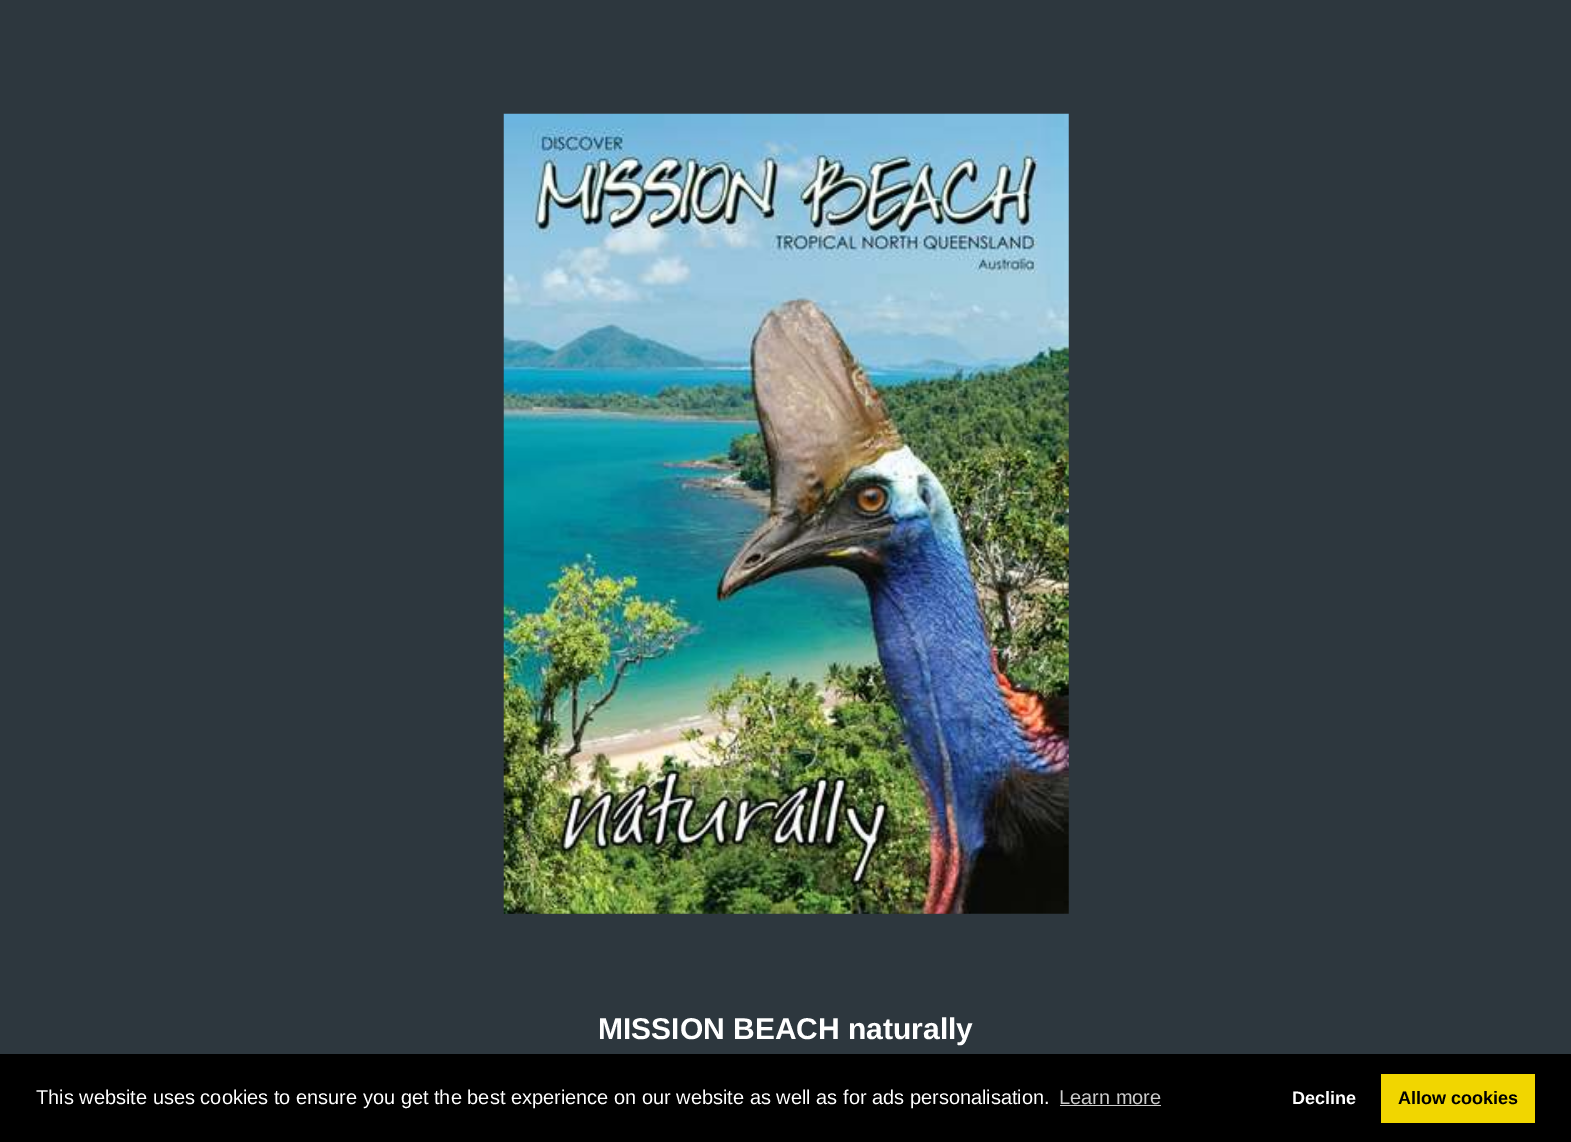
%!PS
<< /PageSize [1571 1142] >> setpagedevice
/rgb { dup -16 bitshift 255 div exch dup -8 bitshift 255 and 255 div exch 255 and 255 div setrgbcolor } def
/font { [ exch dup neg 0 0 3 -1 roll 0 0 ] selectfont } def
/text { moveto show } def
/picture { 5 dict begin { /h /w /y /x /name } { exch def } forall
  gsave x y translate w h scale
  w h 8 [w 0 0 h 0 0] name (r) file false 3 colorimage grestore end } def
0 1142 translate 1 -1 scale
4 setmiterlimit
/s1 { /LiberationSans-Bold 30 font 16#FFFFFF rgb } def
/s2 { /LiberationSans-Regular 20 font 16#FFFFFF rgb } def
/s3 { /LiberationSans-Regular 20 font 16#CCCCCC rgb } def
/s4 { /LiberationSans-Bold 18 font 16#FFFFFF rgb } def
/s5 { /LiberationSans-Bold 18 font 16#000000 rgb } def
16#2D373E rgb
0 0 1571 1142 rectfill
(pic1.raw) 503 113 566 801 picture
s1
(MISSION BEACH naturally) 598 1039 text
16#000000 rgb
0 1054 1571 88 rectfill
s2
(This website uses cookies to ensure you get the best experience on our website as well as for ads personalisation.) 36 1104 text
s3
(Learn more) 1059 1104 text
1060 1105 101 1 rectfill
s4
(Decline) 1292 1104 text
16#F1D600 rgb
1381 1074 154 49 rectfill
s5
(Allow cookies) 1398 1104 text
showpage
